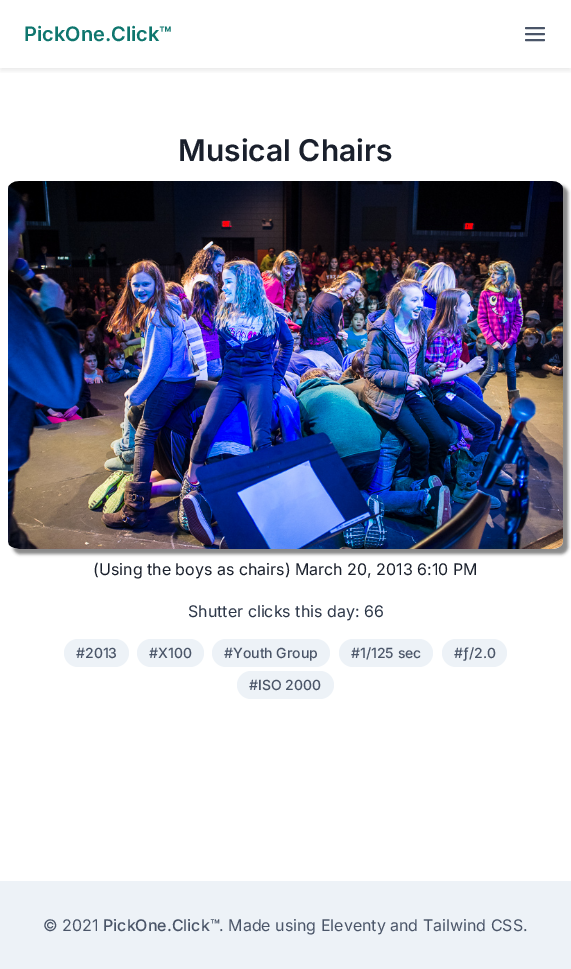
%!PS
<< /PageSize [571 969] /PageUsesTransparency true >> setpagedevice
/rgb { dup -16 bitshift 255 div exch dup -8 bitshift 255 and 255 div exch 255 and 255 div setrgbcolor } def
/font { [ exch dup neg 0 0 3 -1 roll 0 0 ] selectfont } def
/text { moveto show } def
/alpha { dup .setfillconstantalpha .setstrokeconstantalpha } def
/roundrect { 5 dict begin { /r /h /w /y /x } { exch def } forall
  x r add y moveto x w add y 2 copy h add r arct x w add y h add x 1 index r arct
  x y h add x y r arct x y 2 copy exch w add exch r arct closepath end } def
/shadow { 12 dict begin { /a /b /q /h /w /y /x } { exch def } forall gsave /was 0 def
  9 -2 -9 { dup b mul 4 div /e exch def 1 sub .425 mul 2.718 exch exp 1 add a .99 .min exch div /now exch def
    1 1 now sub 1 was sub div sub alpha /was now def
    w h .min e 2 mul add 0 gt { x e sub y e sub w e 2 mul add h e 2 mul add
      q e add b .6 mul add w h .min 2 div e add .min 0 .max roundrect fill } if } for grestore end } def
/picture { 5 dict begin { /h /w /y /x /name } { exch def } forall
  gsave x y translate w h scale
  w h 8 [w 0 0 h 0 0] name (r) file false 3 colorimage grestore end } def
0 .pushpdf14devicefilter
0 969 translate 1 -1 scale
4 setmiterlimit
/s1 { /Inter-SemiBold 20 font 16#0F766E rgb } def
/s2 { /Inter-SemiBold 30 font 16#1A202C rgb } def
/s3 { /Inter-Regular 16 font 16#1A202C rgb } def
/s4 { /Inter-Regular 16 font 16#2D3748 rgb } def
/s5 { /Inter-Medium 14 font 16#4A5568 rgb } def
/s6 { /Inter-Regular 16 font 16#4A5568 rgb } def
/s7 { /Inter-Medium 16 font 16#4A5568 rgb } def
16#FFFFFF rgb
0 0 571 969 rectfill
gsave
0 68 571 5 rectclip
16#000000 rgb
1 4 569 66 0 3 0.1 shadow
grestore
s1
(PickOne.Click™) 24 41 text
16#4A5568 rgb
2 setlinewidth
1 setlinecap
1 setlinejoin
526 34 moveto 544 34 lineto 526 28 moveto 544 28 lineto 526 40 moveto 544 40 lineto stroke
s2
(Musical Chairs) 178 161 text
16#888888 rgb
13 186 555 368 7 1.5 1 shadow
(pic1.raw) 8 181 555 368 picture
s3
(\(Using the boys as chairs\) March 20, 2013 6:10 PM) 93 575 text
s4
(Shutter clicks this day: 66) 188 617 text
16#EDF2F7 rgb
64 639 65 28 14 roundrect fill
s5
(#2013) 76 658 text
16#EDF2F7 rgb
137 639 67 28 14 roundrect fill
s5
(#X100) 149 658 text
16#EDF2F7 rgb
212 639 118 28 14 roundrect fill
s5
(#Youth Group) 224 658 text
16#EDF2F7 rgb
339 639 94 28 14 roundrect fill
s5
(#1/125 sec) 351 658 text
16#EDF2F7 rgb
442 639 65 28 14 roundrect fill
s5
(#ƒ/2.0) 454 658 text
16#EDF2F7 rgb
237 671 97 28 14 roundrect fill
s5
(#ISO 2000) 249 690 text
16#EDF2F7 rgb
0 881 571 88 rectfill
s6
(© 2021) 43 931 text
s7
(PickOne.Click™) 103 931 text
s6
(. Made using Eleventy and Tailwind CSS.) 219 931 text
.poppdf14devicefilter showpage
